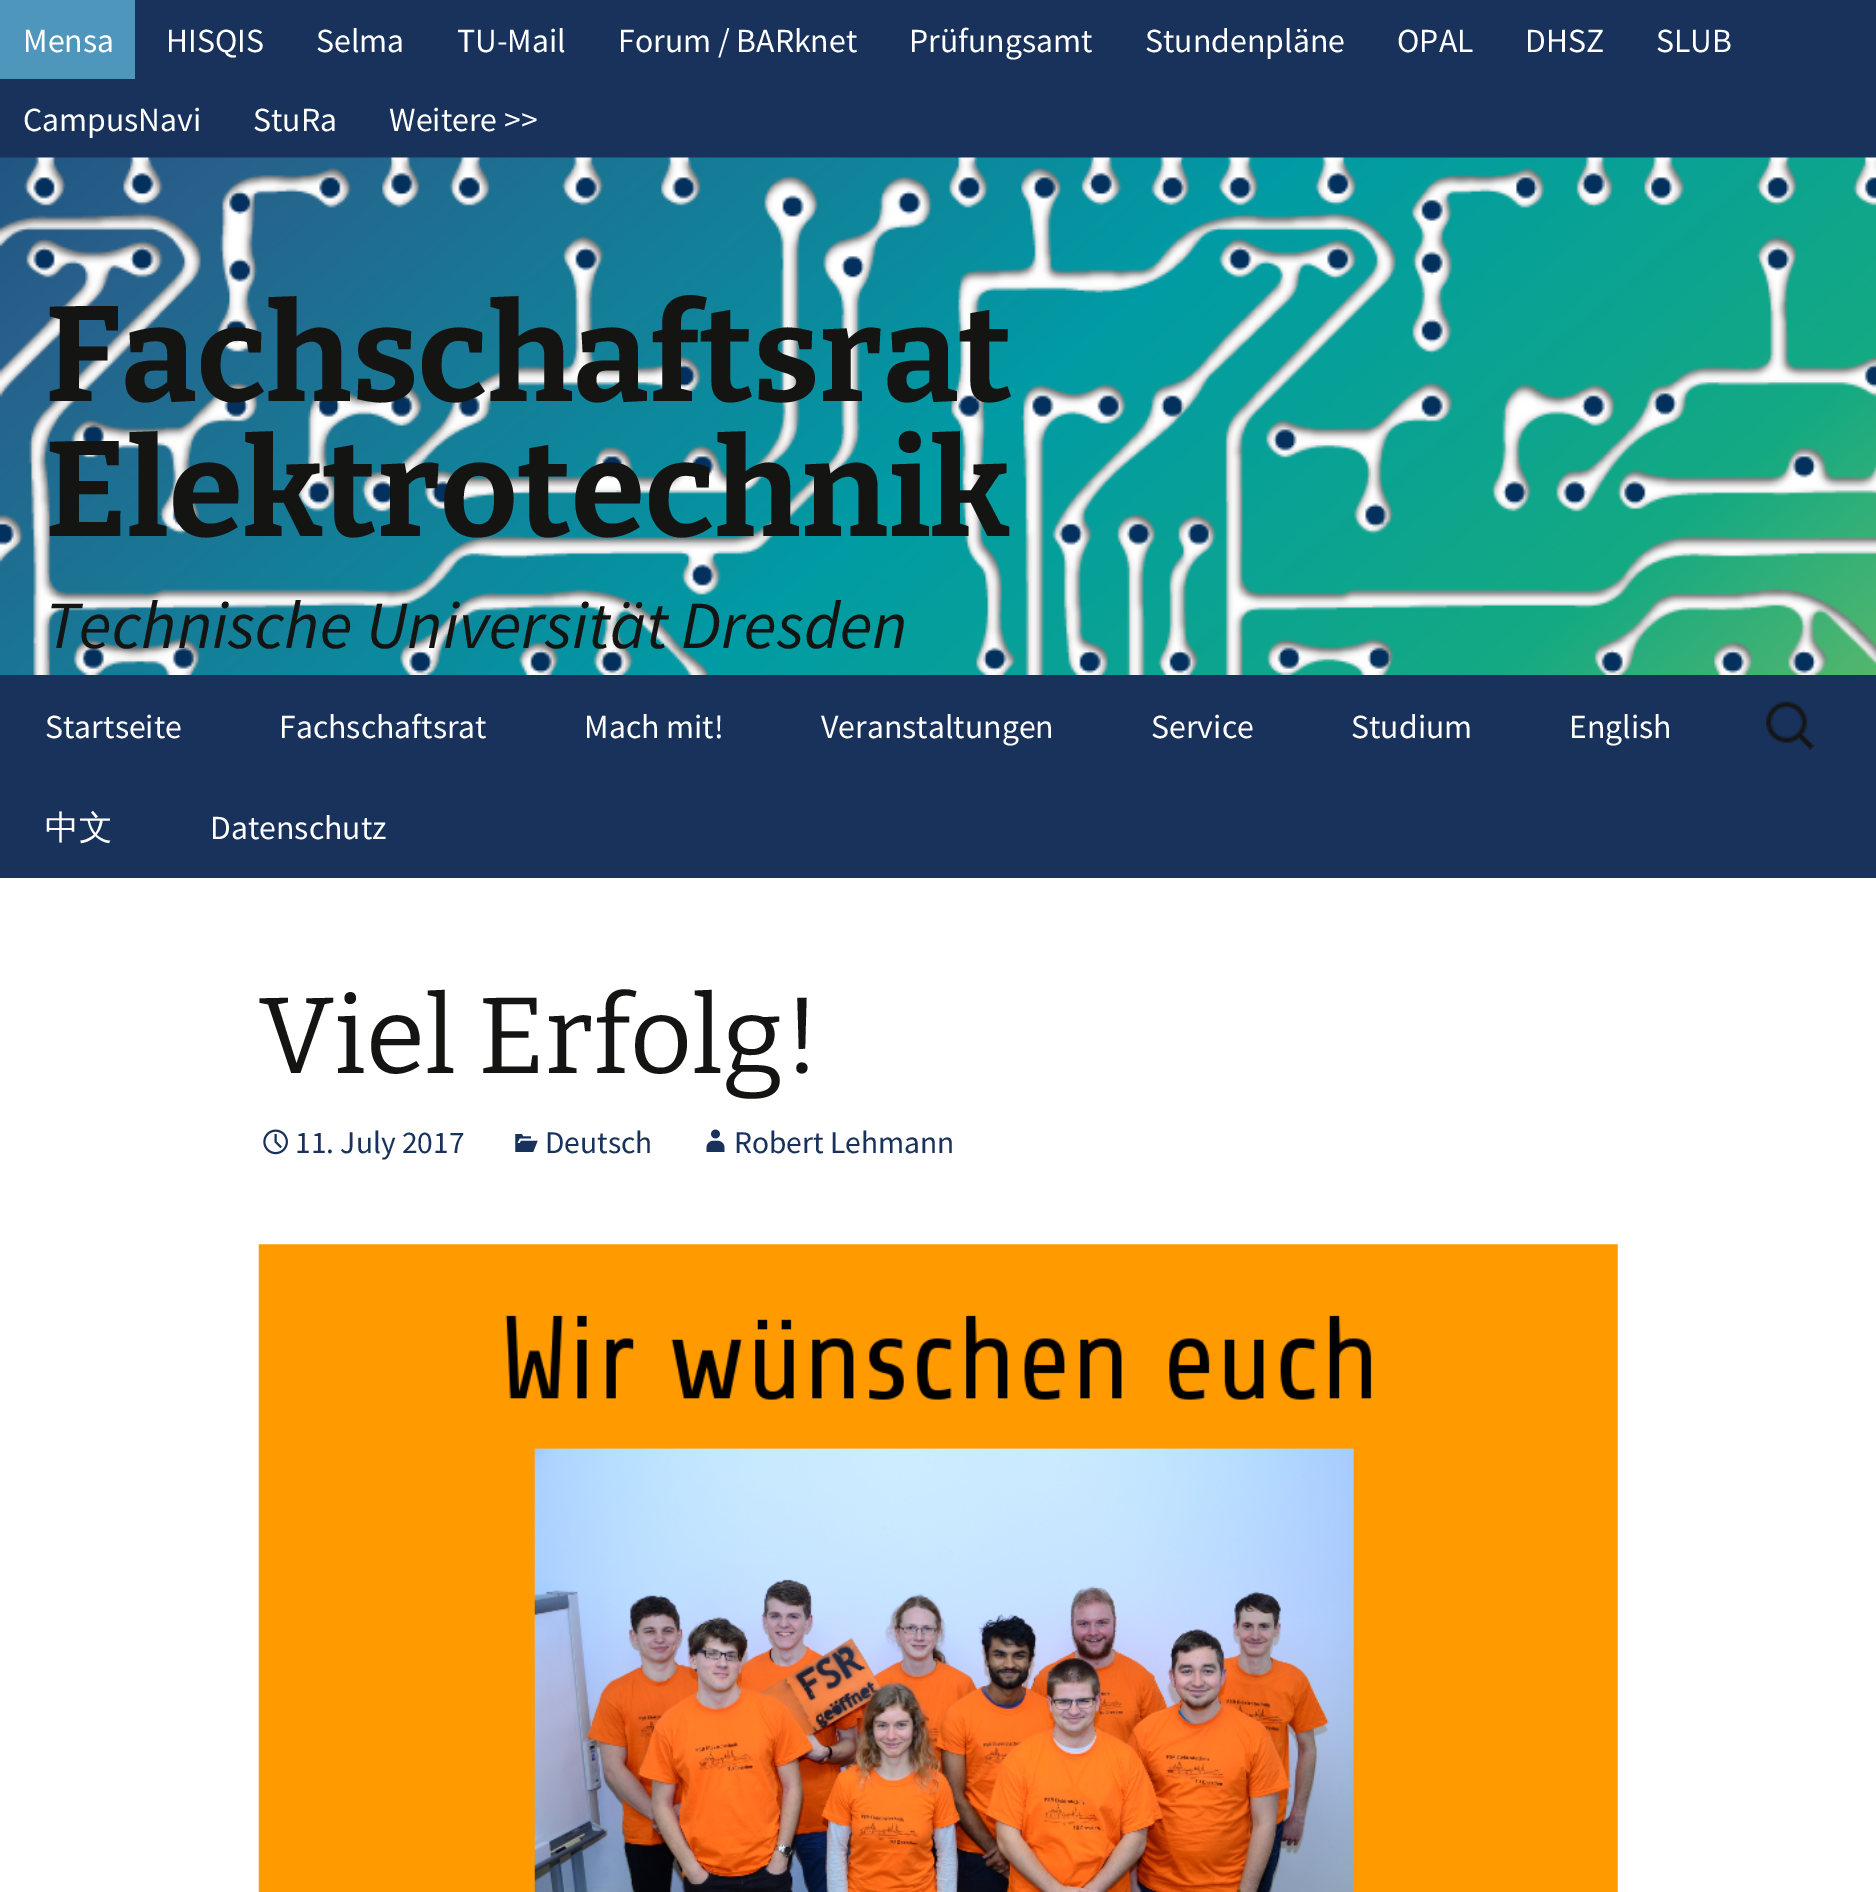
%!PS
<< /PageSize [1876 1892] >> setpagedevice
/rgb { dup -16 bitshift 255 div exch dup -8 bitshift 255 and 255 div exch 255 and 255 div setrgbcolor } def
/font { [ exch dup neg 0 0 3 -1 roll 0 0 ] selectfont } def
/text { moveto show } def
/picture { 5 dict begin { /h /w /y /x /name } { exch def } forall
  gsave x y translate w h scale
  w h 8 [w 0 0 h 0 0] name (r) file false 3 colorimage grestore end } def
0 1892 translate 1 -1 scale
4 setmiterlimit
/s1 { /SourceSansPro-Regular 33.75 font 16#FFFFFF rgb } def
/s2 { /Bitter-Bold 135 font 16#141412 rgb } def
/s3 { /SourceSansPro-Italic 67.5 font 16#141412 rgb } def
/s4 { /WenQuanYiZenHei-Medium 33.75 font 16#FFFFFF rgb } def
/s5 { /Bitter-Regular 108 font 16#141412 rgb } def
/s6 { /SourceSansPro-Regular 31.5 font 16#19325C rgb } def
16#FFFFFF rgb
0 0 1876 1892 rectfill
16#19325C rgb
0 0 1876 158 rectfill
16#4F96BC rgb
0 0 135 79 rectfill
s1
(Mensa) 23 52 text
(HISQIS) 166 52 text
(Selma) 316 52 text
(TU-Mail) 457 52 text
(Forum / BARknet) 618 52 text
(Prüfungsamt) 909 52 text
(Stundenpläne) 1145 52 text
(OPAL) 1397 52 text
(DHSZ) 1525 52 text
(SLUB) 1656 52 text
(CampusNavi) 23 131 text
(StuRa) 253 131 text
(Weitere >>) 389 131 text
(pic1.raw) 0 157 1876 518 picture
s2
(Fachschaftsrat) 45 401 text
(Elektrotechnik) 45 536 text
s3
(Technische Universität Dresden) 45 648 text
16#19325C rgb
0 675 1876 203 rectfill
s1
(Startseite) 45 738 text
(Fachschaftsrat) 279 738 text
(Mach mit!) 584 738 text
(Veranstaltungen) 821 738 text
(Service) 1151 738 text
(Studium) 1351 738 text
(English) 1569 738 text
s4
(中文) 45 839 text
s1
(Datenschutz) 210 839 text
(pic2.raw) 1766 701 49 49 picture
s5
(Viel Erfolg!) 259 1073 text
(pic3.raw) 263 1129 25 26 picture
s6
(11. July 2017) 295 1153 text
(pic4.raw) 515 1134 23 18 picture
(Deutsch) 545 1153 text
(pic5.raw) 706 1129 19 23 picture
(Robert Lehmann) 734 1153 text
(pic6.raw) 258 1244 1360 648 picture
showpage
